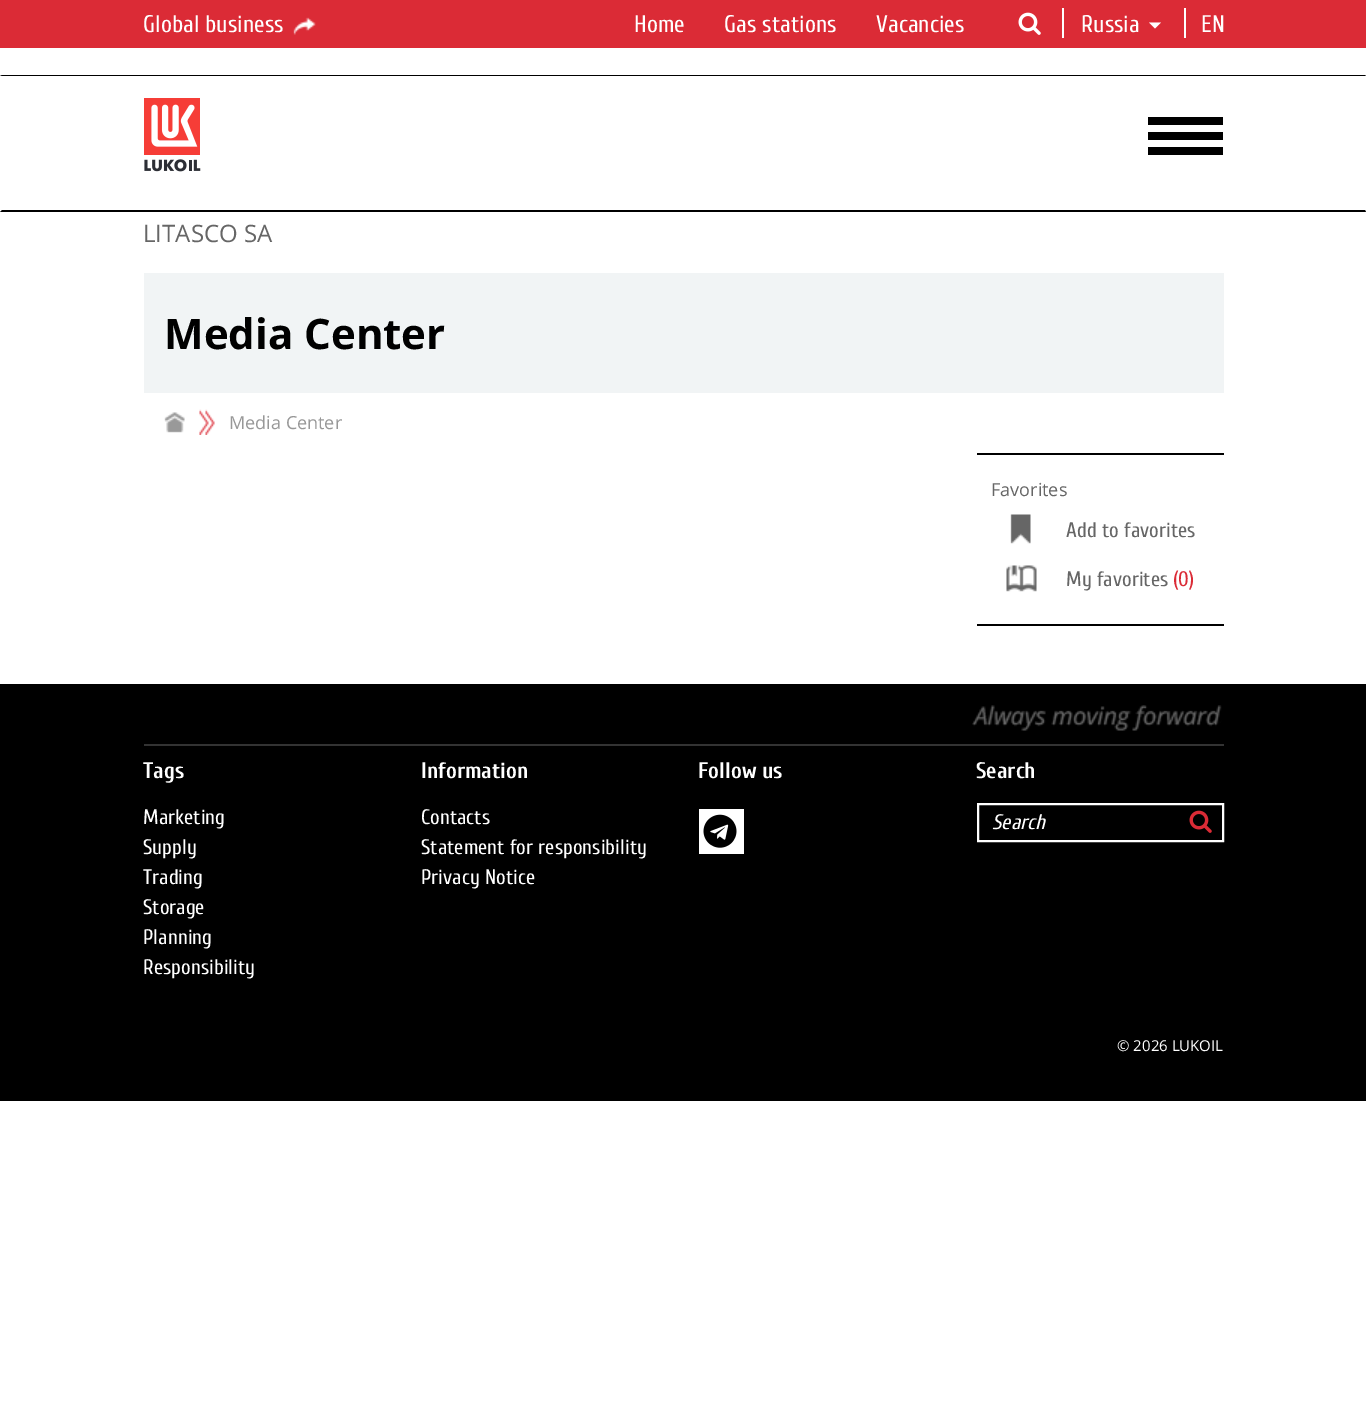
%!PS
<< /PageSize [1366 1426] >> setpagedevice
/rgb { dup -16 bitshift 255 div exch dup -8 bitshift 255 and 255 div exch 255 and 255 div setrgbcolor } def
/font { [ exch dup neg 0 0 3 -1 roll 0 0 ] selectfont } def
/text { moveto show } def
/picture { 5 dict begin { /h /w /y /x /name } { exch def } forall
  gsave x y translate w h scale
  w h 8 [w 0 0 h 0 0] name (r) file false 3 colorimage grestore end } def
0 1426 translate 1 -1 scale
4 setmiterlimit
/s1 { /Cuprum-Regular 24 font 16#FFFFFF rgb } def
/s2 { /OpenSans-Regular 24 font 16#666666 rgb } def
/s3 { /OpenSans-Bold 42 font 16#000000 rgb } def
/s4 { /OpenSans-Regular 18 font 16#989898 rgb } def
/s5 { /OpenSans-Regular 18 font 16#666666 rgb } def
/s6 { /Cuprum-Regular 21 font 16#666666 rgb } def
/s7 { /Cuprum-Regular 21 font 16#DB2B36 rgb } def
/s8 { /Cuprum-Bold 22.5 font 16#FFFFFF rgb } def
/s9 { /Cuprum-Regular 21 font 16#FFFFFF rgb } def
/s10 { /Cuprum-Italic 21 font 16#FFFFFF rgb } def
/s11 { /OpenSans-Regular 15 font 16#FFFFFF rgb } def
16#FFFFFF rgb
0 0 1366 1426 rectfill
16#DB2B36 rgb
0 0 1366 48 rectfill
s1
(Global business) 143 32 text
(pic1.raw) 293 17 23 18 picture
(Home) 634 32 text
(Gas stations) 724 32 text
(Vacancies) 876 32 text
(pic2.raw) 1018 12 23 23 picture
1062 8 2 30 rectfill
(Russia) 1081 32 text
1149 22.5 moveto 1161 22.5 lineto 1155 28.5 lineto closepath fill
1184 8 2 30 rectfill
(EN) 1201 32 text
16#000000 rgb
0 75 moveto 1366 75 lineto 1365 76 lineto 2 76 lineto closepath fill
1366 212 moveto 0 212 lineto 2 210 lineto 1365 210 lineto closepath fill
(pic3.raw) 144 98 57 74 picture
1148 117 75 8 rectfill
1148 132 75 8 rectfill
1148 147 75 8 rectfill
s2
(LITASCO SA) 143 242 text
16#F1F4F5 rgb
144 273 1080 120 rectfill
s3
(Media Center) 164 349 text
(pic4.raw) 164 412 21 21 picture
(pic5.raw) 199 409 16 26 picture
s4
(Media Center) 229 429 text
16#000000 rgb
977 453 247 2 rectfill
977 624 247 2 rectfill
s5
(Favorites) 991 496 text
(pic6.raw) 1010 514 21 30 picture
s6
(Add to favorites) 1066 537 text
(pic7.raw) 1006 565 31 27 picture
(My favorites) 1066 586 text
s7
(\(0\)) 1173 586 text
16#000000 rgb
0 684 1366 417 rectfill
(pic8.raw) 972 705 250 26 picture
16#333333 rgb
144 744 1080 2 rectfill
s8
(Tags) 143 778 text
s9
(Marketing) 143 824 text
(Supply) 143 854 text
(Trading) 143 884 text
(Storage) 143 914 text
(Planning) 143 944 text
(Responsibility) 143 974 text
s8
(Information) 421 778 text
s9
(Contacts) 421 824 text
(Statement for responsibility) 421 854 text
(Privacy Notice) 421 884 text
s8
(Follow us) 698 778 text
699 809 45 45 rectfill
(pic9.raw) 703 814 34 34 picture
(Search) 976 778 text
2 setlinewidth
978 804 245 37 rectstroke
s10
(Search) 992 829 text
(pic10.raw) 1189 810 23 23 picture
s11
(© 2026 LUKOIL) 1117 1051 text
showpage
